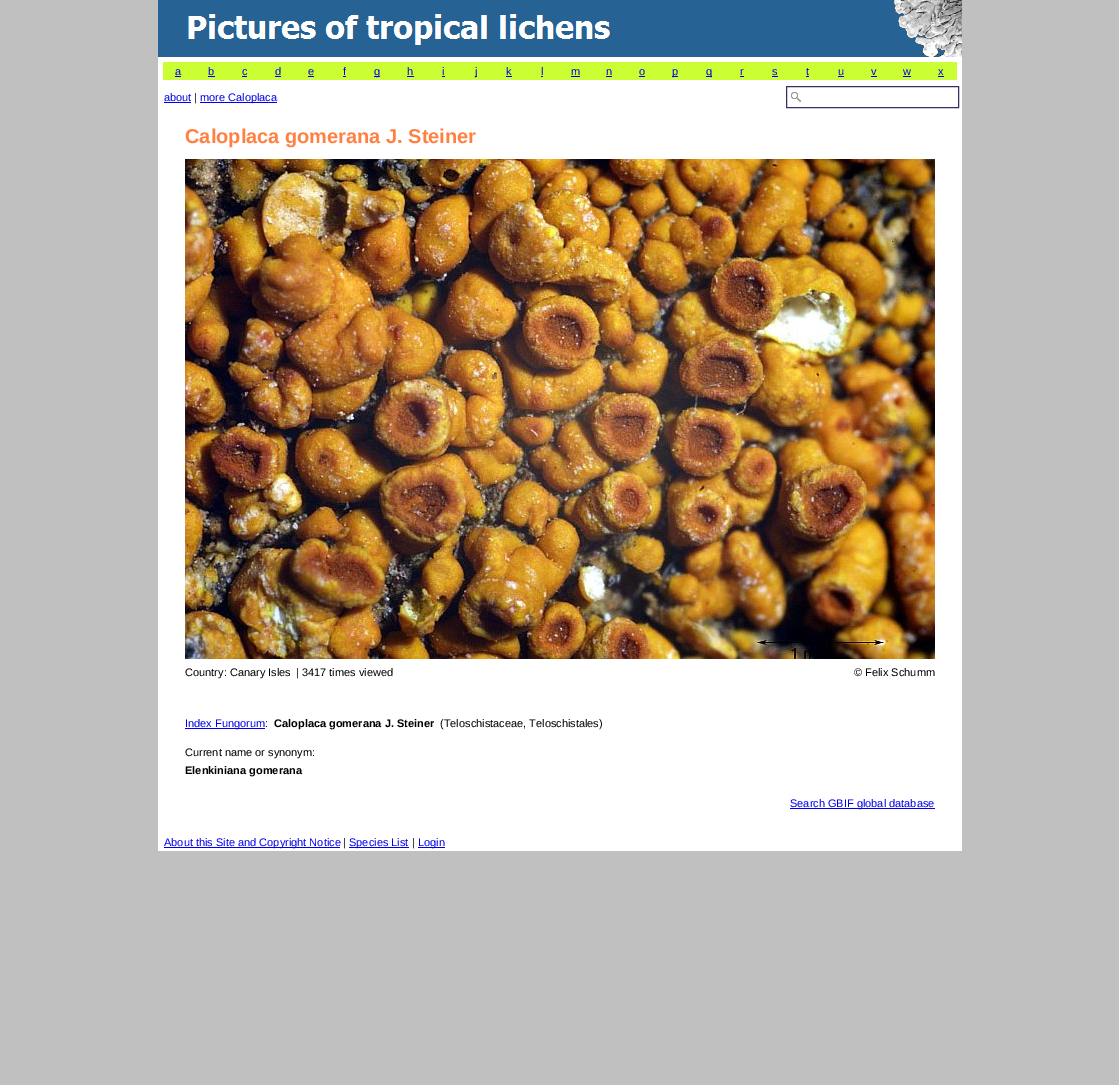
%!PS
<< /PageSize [1119 1085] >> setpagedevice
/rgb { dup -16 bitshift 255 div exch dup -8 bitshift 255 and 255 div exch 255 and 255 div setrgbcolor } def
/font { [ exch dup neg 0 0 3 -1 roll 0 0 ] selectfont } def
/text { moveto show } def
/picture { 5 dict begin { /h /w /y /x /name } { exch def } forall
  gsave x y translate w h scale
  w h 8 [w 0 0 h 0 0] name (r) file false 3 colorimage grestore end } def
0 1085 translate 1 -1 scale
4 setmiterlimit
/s1 { /LiberationSans-Regular 11 font 16#0000EE rgb } def
/s2 { /LiberationSans-Regular 11 font 16#000000 rgb } def
/s3 { /LiberationSans-Bold 20 font 16#FF8040 rgb } def
/s4 { /LiberationSans-Bold 11 font 16#000000 rgb } def
16#C0C0C0 rgb
0 0 1119 1085 rectfill
16#FFFFFF rgb
158 57 804 794 rectfill
16#266294 rgb
158 0 804 57 rectfill
(pic1.raw) 188 0 774 57 picture
16#CCFF33 rgb
163 62 794 18 rectfill
s1
(a) 175 75 text
175 76 6 1 rectfill
(b) 208 75 text
208 76 7 1 rectfill
(c) 242 75 text
242 76 5 1 rectfill
(d) 275 75 text
275 76 6 1 rectfill
(e) 308 75 text
308 76 6 1 rectfill
(f) 343 75 text
343 76 3 1 rectfill
374 76 6 1 rectfill
(g) 374 75 text
(h) 407 75 text
407 76 7 1 rectfill
(i) 442 75 text
442 76 3 1 rectfill
475 76 2 1 rectfill
(j) 475 75 text
(k) 506 75 text
506 76 6 1 rectfill
(l) 541 75 text
541 76 2 1 rectfill
(m) 571 75 text
571 76 9 1 rectfill
(n) 606 75 text
606 76 6 1 rectfill
(o) 639 75 text
639 76 6 1 rectfill
672 76 6 1 rectfill
(p) 672 75 text
706 76 6 1 rectfill
(q) 706 75 text
(r) 740 75 text
740 76 4 1 rectfill
(s) 772 75 text
772 76 6 1 rectfill
(t) 806 75 text
806 76 3 1 rectfill
(u) 838 75 text
838 76 6 1 rectfill
(v) 871 75 text
871 76 6 1 rectfill
(w) 903 75 text
903 76 8 1 rectfill
(x) 938 75 text
938 76 6 1 rectfill
(about) 164 101 text
164 102 27 1 rectfill
s2
(|) 194 101 text
16#0000EE rgb
200 102 77 1 rectfill
(more Caloplaca) 200 101 text
(pic2.raw) 791 92 10 10 picture
16#333366 rgb
786.5 86.5 172 21 rectstroke
s3
(Caloplaca gomerana J. Steiner) 185 143 text
(pic3.raw) 185 159 750 500 picture
s2
(Country: Canary Isles) 185 676 text
(| 3417 times viewed) 296 676 text
(© Felix Schumm) 854 676 text
16#0000EE rgb
185 728 80 1 rectfill
(Index Fungorum) 185 727 text
s2
(:) 265 727 text
s4
(Caloplaca gomerana J. Steiner) 274 727 text
s2
(\(Teloschistaceae, Teloschistales\)) 440 727 text
(Current name or synonym:) 185 756 text
s4
(Elenkiniana gomerana) 185 774 text
16#0000EE rgb
790 808 145 1 rectfill
s1
(Search GBIF global database) 790 807 text
164 847 176 1 rectfill
(About this Site and Copyright Notice) 164 846 text
s2
(|) 343 846 text
16#0000EE rgb
349 847 60 1 rectfill
(Species List) 349 846 text
s2
(|) 412 846 text
16#0000EE rgb
418 847 27 1 rectfill
(Login) 418 846 text
showpage
